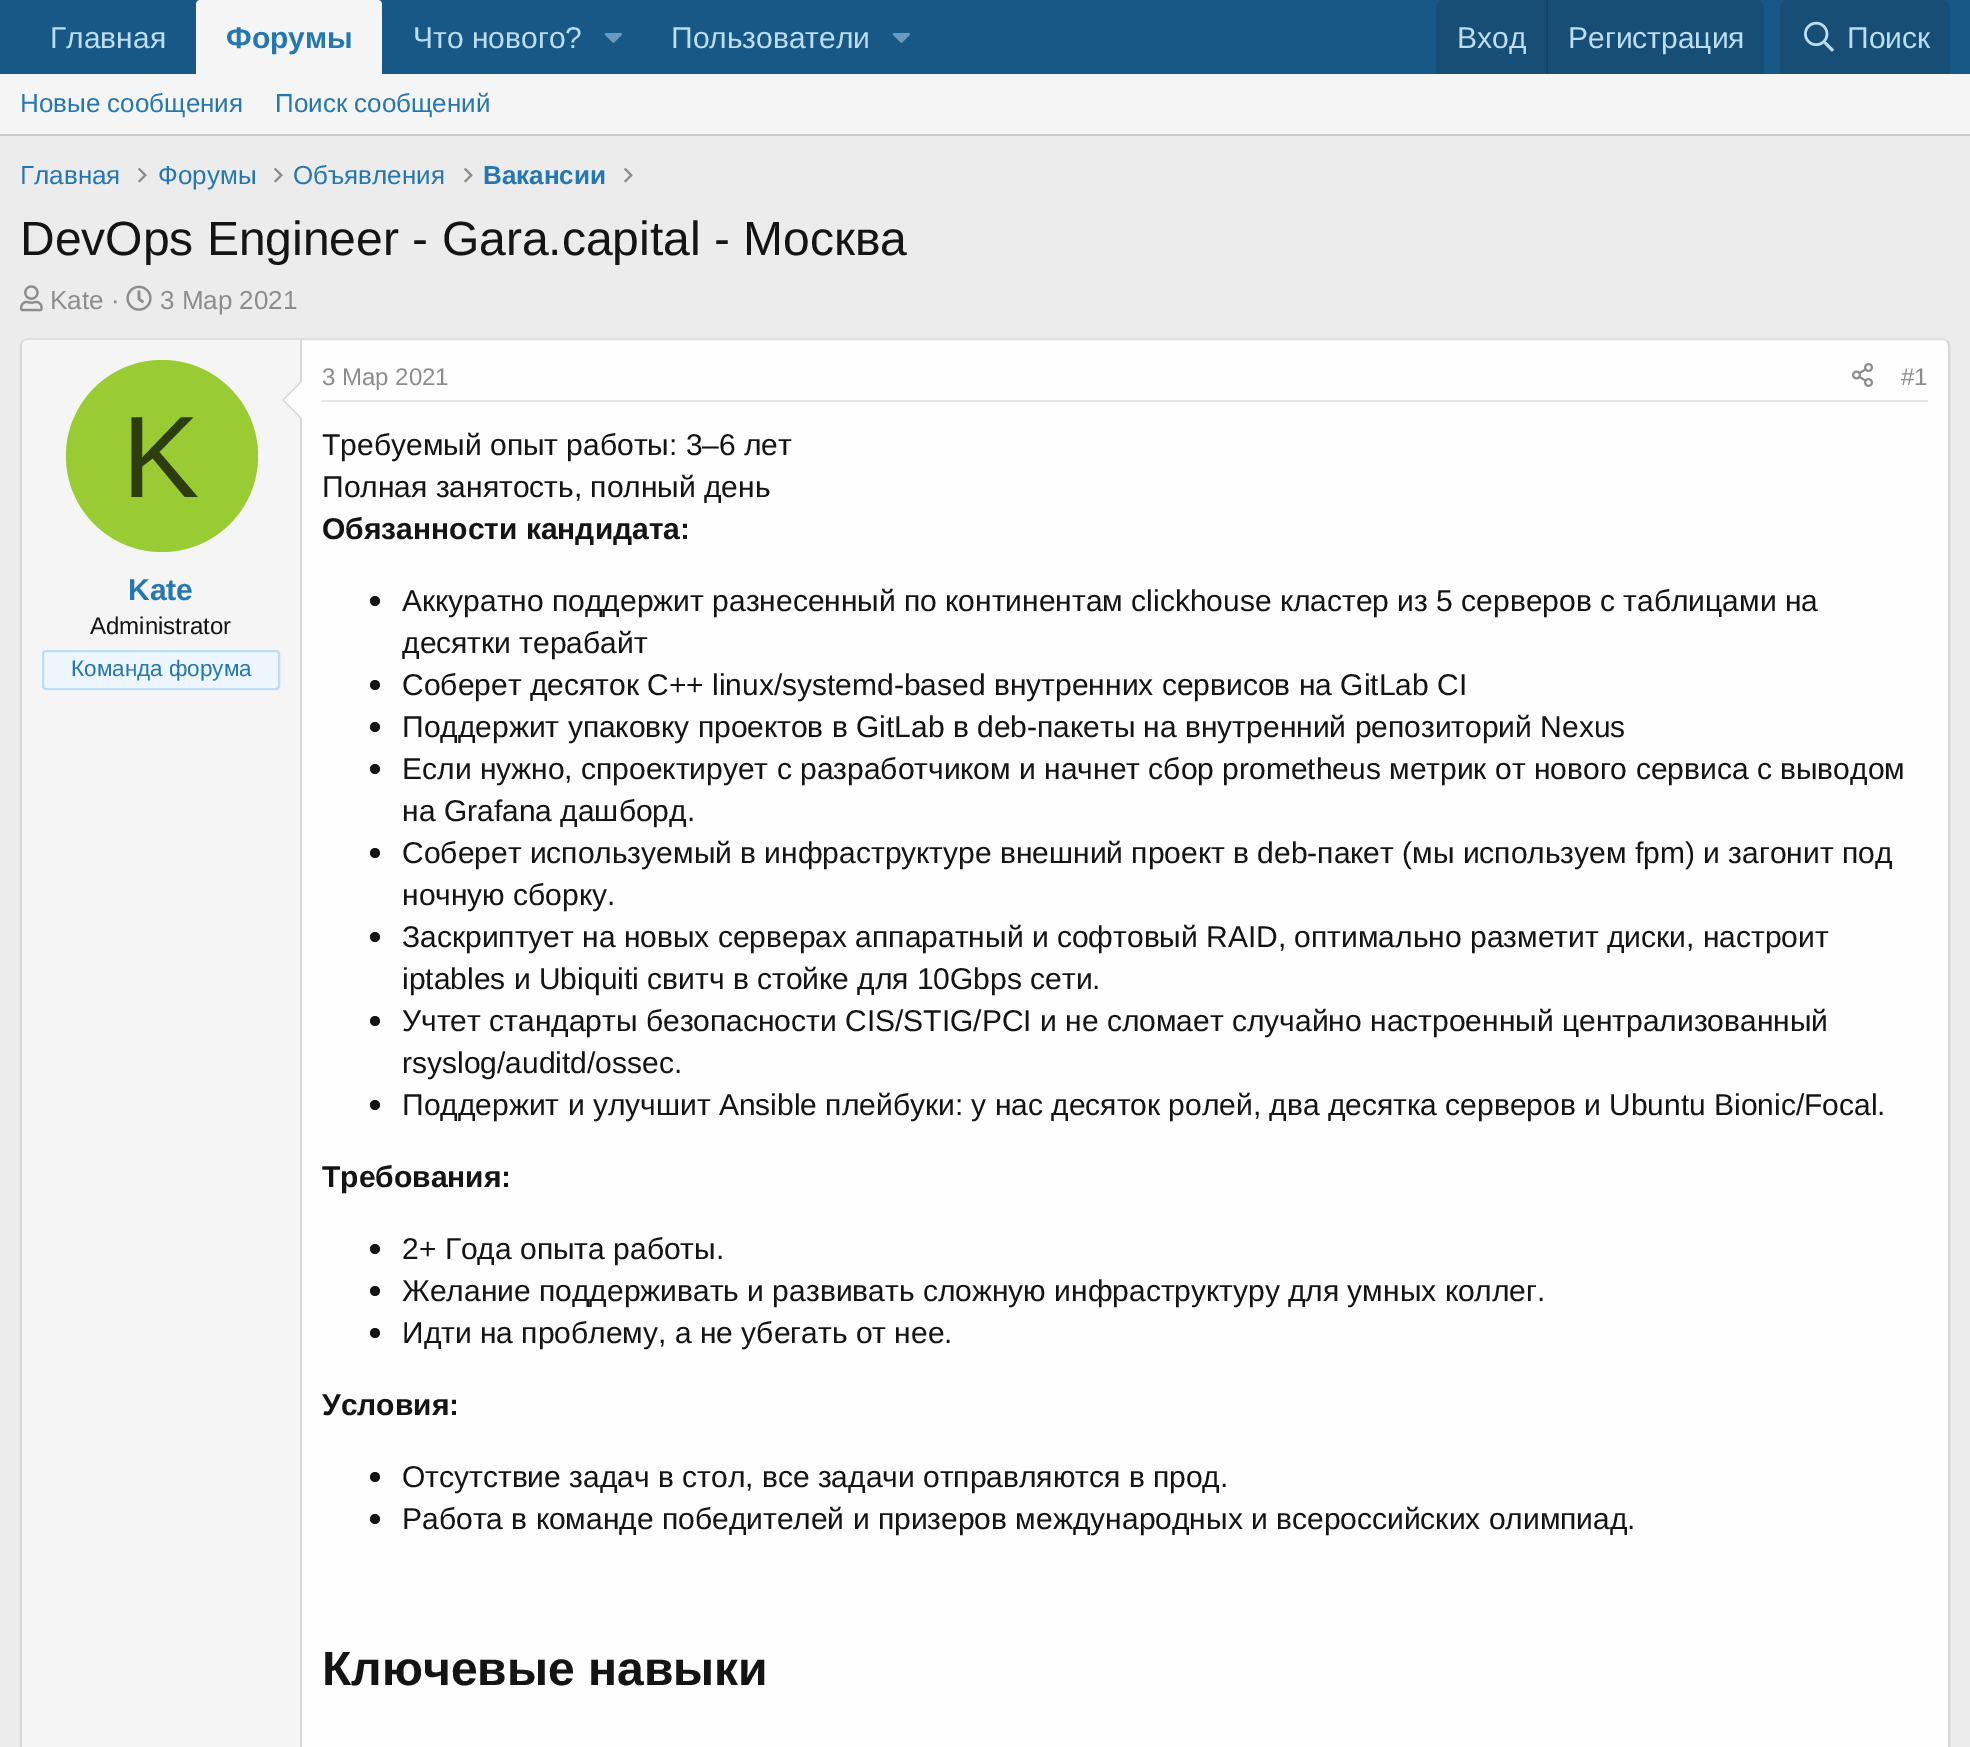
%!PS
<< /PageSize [1970 1747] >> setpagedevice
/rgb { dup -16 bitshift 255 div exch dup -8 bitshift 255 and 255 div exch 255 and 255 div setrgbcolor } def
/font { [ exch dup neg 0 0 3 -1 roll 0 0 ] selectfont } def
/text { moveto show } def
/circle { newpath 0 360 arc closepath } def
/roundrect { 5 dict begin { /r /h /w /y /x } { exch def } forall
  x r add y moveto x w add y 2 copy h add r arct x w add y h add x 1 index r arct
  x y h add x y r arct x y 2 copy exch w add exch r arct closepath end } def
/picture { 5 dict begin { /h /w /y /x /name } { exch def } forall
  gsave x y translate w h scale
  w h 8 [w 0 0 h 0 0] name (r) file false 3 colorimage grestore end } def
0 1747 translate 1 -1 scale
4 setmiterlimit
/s1 { /LiberationSans-Regular 30 font 16#BCDEF5 rgb } def
/s2 { /LiberationSans-Bold 30 font 16#2577B1 rgb } def
/s3 { /LiberationSans-Regular 26 font 16#2577B1 rgb } def
/s4 { /LiberationSans-Bold 26 font 16#2577B1 rgb } def
/s5 { /LiberationSans-Regular 48 font 16#141414 rgb } def
/s6 { /LiberationSans-Regular 26 font 16#8C8C8C rgb } def
/s7 { /LiberationSans-Regular 116 font 16#2E3D0F rgb } def
/s8 { /LiberationSans-Regular 24 font 16#141414 rgb } def
/s9 { /LiberationSans-Regular 22.5 font 16#2577B1 rgb } def
/s10 { /LiberationSans-Regular 24 font 16#8C8C8C rgb } def
/s11 { /LiberationSans-Regular 30 font 16#141414 rgb } def
/s12 { /LiberationSans-Bold 30 font 16#141414 rgb } def
/s13 { /LiberationSans-Bold 48 font 16#141414 rgb } def
16#ECECEC rgb
0 0 1970 1747 rectfill
16#185886 rgb
0 0 1970 74 rectfill
s1
(Главная) 50 48 text
16#F5F5F5 rgb
200 0 moveto 378 0 lineto 380 0 382 2 382 4 curveto 382 74 lineto 196 74 lineto 196 4 lineto 196 2 198 0 200 0 curveto closepath fill
s2
(Форумы) 226 48 text
s1
(Что нового?) 413 48 text
(pic1.raw) 604 33 18 10 picture
(Пользователи) 671 48 text
(pic1.raw) 892 33 18 10 picture
16#174E75 rgb
1444 0 moveto 1756 0 lineto 1760.5 0 1764 3.5 1764 8 curveto 1764 74 lineto 1436 74 lineto 1436 8 lineto 1436 3.5 1439.5 0 1444 0 curveto closepath fill
s1
(Вход) 1457 48 text
16#174566 rgb
1546 0 2 74 rectfill
s1
(Регистрация) 1568 48 text
16#174E75 rgb
1788 0 moveto 1942 0 lineto 1946.5 0 1950 3.5 1950 8 curveto 1950 74 lineto 1780 74 lineto 1780 8 lineto 1780 3.5 1783.5 0 1788 0 curveto closepath fill
(pic2.raw) 1804 21 30 31 picture
s1
(Поиск) 1847 48 text
16#F5F5F5 rgb
0 74 1970 60 rectfill
16#CBCBCB rgb
0 134 1970 2 rectfill
s3
(Новые сообщения) 20 112 text
(Поиск сообщений) 275 112 text
(Главная) 20 184 text
(pic3.raw) 138 168 9 15 picture
(Форумы) 158 184 text
(pic3.raw) 274 168 9 15 picture
(Объявления) 293 184 text
(pic3.raw) 464 168 9 15 picture
s4
(Вакансии) 483 184 text
(pic3.raw) 624 168 9 15 picture
s5
(DevOps Engineer - Gara.capital - Москва) 20 255 text
(pic4.raw) 20 285 23 27 picture
s6
(Kate ·) 50 309 text
(pic5.raw) 126 285 26 26 picture
(3 Мар 2021) 160 309 text
16#FEFEFE rgb
20 338 1930 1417 8 roundrect fill
16#DFDFDF rgb
2 setlinewidth
23 341 moveto 24.5 339.5 26 339 28 339 curveto 1942 339 lineto 1944 339 1945.5 339.5 1947 341 curveto stroke
16#D8D8D8 rgb
1947 341 moveto 1948.5 342.5 1949 344 1949 346 curveto 1949 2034 lineto 1949 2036 1948.5 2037.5 1947 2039 curveto stroke
23 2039 moveto 21.5 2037.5 21 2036 21 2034 curveto 21 346 lineto 21 344 21.5 342.5 23 341 curveto stroke
16#F5F5F5 rgb
28 340 moveto 302 340 lineto 302 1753 lineto 28 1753 lineto 24.5 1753 22 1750.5 22 1747 curveto 22 346 lineto 22 342.5 24.5 340 28 340 curveto closepath fill
16#D8D8D8 rgb
300 340 2 1407 rectfill
302 380 moveto 302 420 lineto 282 400 lineto closepath fill
16#FEFEFE rgb
302 382 moveto 302 418 lineto 284 400 lineto closepath fill
16#99CC33 rgb
162 456 96 circle fill
s7
(K) 122 497 text
s2
(Kate) 128 600 text
s8
(Administrator) 90 634 text
16#EDF6FD rgb
43 651 236 38 3 roundrect gsave fill grestore
16#BCDEF5 rgb
stroke
s9
(Команда форума) 71 676 text
16#E7E7E7 rgb
322 400 1606 2 rectfill
s10
(3 Мар 2021) 322 385 text
(pic6.raw) 1852 363 21 24 picture
(#1) 1901 385 text
s11
(Требуемый опыт работы: 3–6 лет) 322 455 text
(Полная занятость, полный день) 322 497 text
s12
(Обязанности кандидата:) 322 539 text
375 601 5 circle fill
s11
(Аккуратно поддержит разнесенный по континентам clickhouse кластер из 5 серверов с таблицами на) 402 611 text
(десятки терабайт) 402 653 text
375 685 5 circle fill
(Соберет десяток C++ linux/systemd-based внутренних сервисов на GitLab CI) 402 695 text
375 727 5 circle fill
(Поддержит упаковку проектов в GitLab в deb-пакеты на внутренний репозиторий Nexus) 402 737 text
375 769 5 circle fill
(Если нужно, спроектирует с разработчиком и начнет сбор prometheus метрик от нового сервиса с выводом) 402 779 text
(на Grafana дашборд.) 402 821 text
375 853 5 circle fill
(Соберет используемый в инфраструктуре внешний проект в deb-пакет \(мы используем fpm\) и загонит под) 402 863 text
(ночную сборку.) 402 905 text
375 937 5 circle fill
(Заскриптует на новых серверах аппаратный и софтовый RAID, оптимально разметит диски, настроит) 402 947 text
(iptables и Ubiquiti свитч в стойке для 10Gbps сети.) 402 989 text
375 1021 5 circle fill
(Учтет стандарты безопасности CIS/STIG/PCI и не сломает случайно настроенный централизованный) 402 1031 text
(rsyslog/auditd/ossec.) 402 1073 text
375 1105 5 circle fill
(Поддержит и улучшит Ansible плейбуки: у нас десяток ролей, два десятка серверов и Ubuntu Bionic/Focal.) 402 1115 text
s12
(Требования:) 322 1187 text
375 1249 5 circle fill
s11
(2+ Года опыта работы.) 402 1259 text
375 1291 5 circle fill
(Желание поддерживать и развивать сложную инфраструктуру для умных коллег.) 402 1301 text
375 1333 5 circle fill
(Идти на проблему, а не убегать от нее.) 402 1343 text
s12
(Условия:) 322 1415 text
375 1477 5 circle fill
s11
(Отсутствие задач в стол, все задачи отправляются в прод.) 402 1487 text
375 1519 5 circle fill
(Работа в команде победителей и призеров международных и всероссийских олимпиад.) 402 1529 text
s13
(Ключевые навыки) 322 1685 text
showpage
